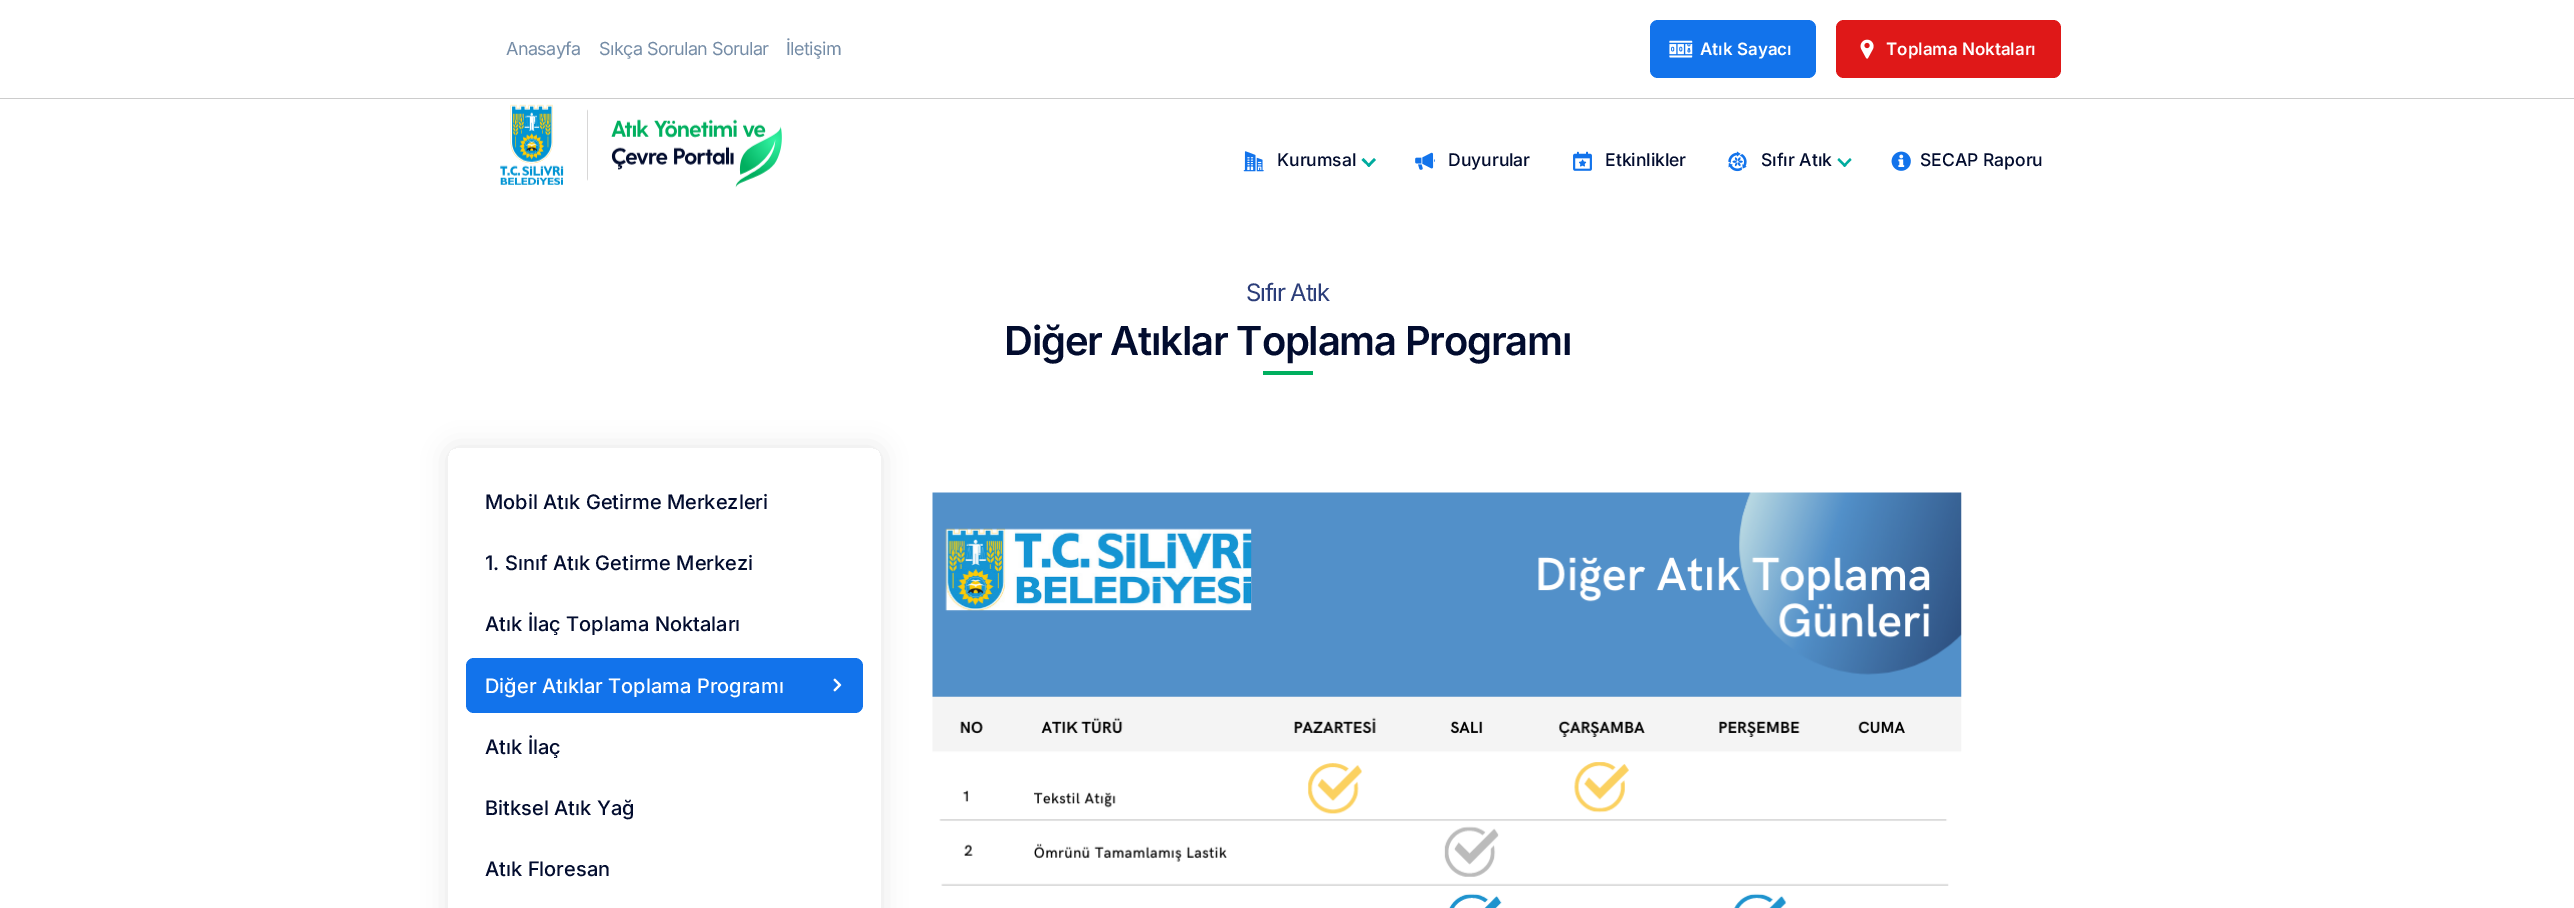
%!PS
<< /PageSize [2574 908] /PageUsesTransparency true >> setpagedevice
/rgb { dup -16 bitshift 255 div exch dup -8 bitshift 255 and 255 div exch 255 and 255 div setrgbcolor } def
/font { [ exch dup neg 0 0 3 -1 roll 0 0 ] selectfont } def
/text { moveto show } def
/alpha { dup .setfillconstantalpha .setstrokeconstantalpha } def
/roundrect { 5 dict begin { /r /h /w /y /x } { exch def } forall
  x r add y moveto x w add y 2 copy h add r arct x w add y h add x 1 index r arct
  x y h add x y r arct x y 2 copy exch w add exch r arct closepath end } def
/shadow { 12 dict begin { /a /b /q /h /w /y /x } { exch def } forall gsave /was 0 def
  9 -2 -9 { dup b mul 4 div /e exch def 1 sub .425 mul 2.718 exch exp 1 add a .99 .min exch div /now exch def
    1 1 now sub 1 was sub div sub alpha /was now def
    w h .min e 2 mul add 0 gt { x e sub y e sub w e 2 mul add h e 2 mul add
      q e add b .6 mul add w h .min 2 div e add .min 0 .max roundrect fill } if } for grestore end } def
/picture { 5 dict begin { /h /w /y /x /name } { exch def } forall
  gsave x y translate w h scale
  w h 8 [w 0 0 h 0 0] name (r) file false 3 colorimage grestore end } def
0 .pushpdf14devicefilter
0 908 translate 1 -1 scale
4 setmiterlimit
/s1 { /Inter-SemiBold 17 font 16#FFFFFF rgb } def
/s2 { /Inter-Medium 17.5 font 16#020C2E rgb } def
/s3 { /Inter-Medium 20 font 16#020C2E rgb } def
/s4 { /Inter-Medium 20 font 16#FFFFFF rgb } def
16#FFFFFF rgb
0 0 2574 908 rectfill
16#CCCCCC rgb
0 98 2574 1 rectfill
/Inter-Regular 18 font
16#758CA6 rgb
506 55 moveto -0.6 0 (Anasayfa) ashow
599 55 moveto -0.6 0 (Sıkça Sorulan Sorular) ashow
786 55 moveto -0.6 0 (İletişim) ashow
16#1273EB rgb
1650 20 166 58 8 roundrect fill
(pic1.raw) 1669 40 24 18 picture
s1
(Atık Sayacı) 1700 55 text
16#DF1818 rgb
1836 20 225 58 8 roundrect fill
(pic2.raw) 1860 39 14 20 picture
s1
(Toplama Noktaları) 1886 55 text
(pic3.raw) 500 104 282 84 picture
(pic4.raw) 1243 151 21 21 picture
s2
(Kurumsal) 1277 166 text
16#00AB9E rgb
1374 158 moveto 1376 160 lineto 1369 167 lineto 1367 165.5 lineto closepath fill
1363.5 158 moveto 1370.5 165.5 lineto 1369 167 lineto 1361.5 160 lineto closepath fill
(pic5.raw) 1415 152 20 18 picture
s2
(Duyurular) 1448 166 text
(pic6.raw) 1573 151 19 20 picture
(Etkinlikler) 1605 166 text
(pic7.raw) 1728 151 19 21 picture
(Sıfır Atık) 1761 166 text
16#00AB9E rgb
1850 158 moveto 1851.5 160 lineto 1844.5 167 lineto 1843 165.5 lineto closepath fill
1839 158 moveto 1846.5 165.5 lineto 1844.5 167 lineto 1837.5 160 lineto closepath fill
(pic8.raw) 1891 151 20 20 picture
s2
(SECAP Raporu) 1920 166 text
/Inter-Regular 24 font
16#2B3D79 rgb
1246 301 moveto -1.25 0 (Sıfır Atık) ashow
/Inter-SemiBold 40 font
16#020C2E rgb
1004 355 moveto -1.25 0 (Diğer Atıklar Toplama Programı) ashow
16#00AF5F rgb
1263 371 50 4 rectfill
gsave
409 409 moveto 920 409 lineto 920 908 lineto 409 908 lineto closepath 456 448 moveto 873 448 lineto 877.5 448 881 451.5 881 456 curveto 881 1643 lineto 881 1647.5 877.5 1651 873 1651 curveto 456 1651 lineto 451.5 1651 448 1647.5 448 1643 curveto 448 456 lineto 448 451.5 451.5 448 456 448 curveto closepath eoclip newpath
16#000000 rgb
448 448 433 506 8 12.5 0.1 shadow
grestore
s3
(Mobil Atık Getirme Merkezleri) 485 509 text
(1. Sınıf Atık Getirme Merkezi) 485 570 text
(Atık İlaç Toplama Noktaları) 485 631 text
16#1273EB rgb
466 658 397 55 8 roundrect fill
(pic9.raw) 833 678 9 14 picture
s4
(Diğer Atıklar Toplama Programı) 485 693 text
s3
(Atık İlaç) 485 754 text
(Bitksel Atık Yağ) 485 815 text
(Atık Floresan) 485 876 text
(pic10.raw) 932 492 1030 416 picture
.poppdf14devicefilter showpage
